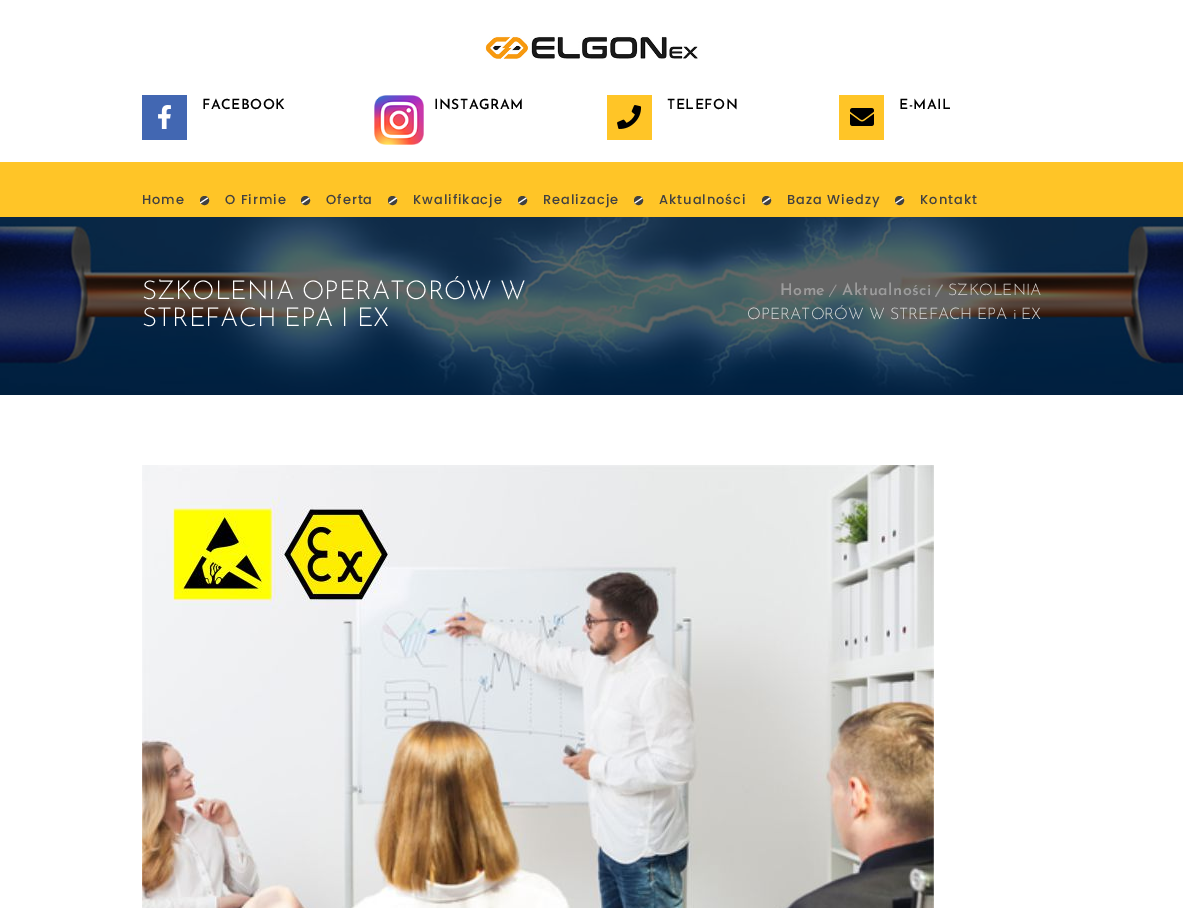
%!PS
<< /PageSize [1183 908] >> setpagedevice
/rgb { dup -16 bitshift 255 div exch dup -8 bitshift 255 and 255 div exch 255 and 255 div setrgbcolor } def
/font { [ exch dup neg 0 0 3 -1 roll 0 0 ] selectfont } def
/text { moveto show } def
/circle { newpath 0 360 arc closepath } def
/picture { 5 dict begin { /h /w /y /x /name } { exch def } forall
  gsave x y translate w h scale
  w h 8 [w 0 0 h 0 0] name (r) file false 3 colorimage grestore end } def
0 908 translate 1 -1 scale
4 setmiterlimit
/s1 { /JosefinSans-Light 26 font 16#FFFFFF rgb } def
/s2 { /JosefinSans-Light 16 font 16#DBD8D5 rgb } def
/s3 { /JosefinSans-Light 16 font 16#DBDDDD rgb } def
16#FFFFFF rgb
0 0 1183 908 rectfill
(pic1.raw) 485 36 213 23 picture
16#4267B2 rgb
142 95 45 45 rectfill
(pic2.raw) 158 105 13 24 picture
/JosefinSans-SemiBold 14 font
16#000000 rgb
202 109 moveto 0.5 0 (FACEBOOK) ashow
(pic3.raw) 374 95 50 50 picture
434 109 moveto 0.5 0 (INSTAGRAM) ashow
16#FFC527 rgb
607 95 45 45 rectfill
(pic4.raw) 617 105 25 24 picture
16#000000 rgb
667 109 moveto 0.5 0 (TELEFON) ashow
16#FFC527 rgb
839 95 45 45 rectfill
(pic5.raw) 850 108 24 18 picture
16#000000 rgb
899 109 moveto 0.5 0 (E-MAIL) ashow
16#FFC527 rgb
0 162 1183 55 rectfill
/Poppins-Medium 13 font
16#414141 rgb
142 204 moveto 1 0 (Home) ashow
204.5 200.5 3 circle gsave fill grestore
3 setlinewidth
stroke
16#FFFFFF rgb
200 202.5 moveto 207.5 197.5 lineto 208 198.5 lineto 200.5 203.5 lineto closepath fill
16#414141 rgb
225 204 moveto 1 0 (O Firmie) ashow
305.5 200.5 3 circle gsave fill grestore
stroke
16#FFFFFF rgb
301.5 202.5 moveto 309 197.5 lineto 309.5 198.5 lineto 302.5 203.5 lineto closepath fill
16#414141 rgb
326 204 moveto 1 0 (Oferta) ashow
392.5 200.5 3 circle gsave fill grestore
stroke
16#FFFFFF rgb
389 202.5 moveto 396 197.5 lineto 397 198.5 lineto 389.5 203.5 lineto closepath fill
16#414141 rgb
413 204 moveto 1 0 (Kwalifikacje) ashow
522.5 200.5 3 circle gsave fill grestore
stroke
16#FFFFFF rgb
518.5 202.5 moveto 526 197.5 lineto 526.5 198.5 lineto 519 203.5 lineto closepath fill
16#414141 rgb
543 204 moveto 1 0 (Realizacje) ashow
638.5 200.5 3 circle gsave fill grestore
stroke
16#FFFFFF rgb
634.5 202.5 moveto 642 197.5 lineto 642.5 198.5 lineto 635 203.5 lineto closepath fill
16#414141 rgb
659 204 moveto 1 0 (Aktualności) ashow
766.5 200.5 3 circle gsave fill grestore
stroke
16#FFFFFF rgb
762.5 202.5 moveto 769.5 197.5 lineto 770.5 198.5 lineto 763 203.5 lineto closepath fill
16#414141 rgb
787 204 moveto 1 0 (Baza Wiedzy) ashow
899.5 200.5 3 circle gsave fill grestore
stroke
16#FFFFFF rgb
895.5 202.5 moveto 903 197.5 lineto 903.5 198.5 lineto 896 203.5 lineto closepath fill
16#414141 rgb
920 204 moveto 1 0 (Kontakt) ashow
(pic6.raw) 0 217 1183 178 picture
s1
(SZKOLENIA OPERATORÓW W) 142 299 text
(STREFACH EPA I EX) 142 326 text
/JosefinSans-SemiBold 16 font
16#9C9C9C rgb
780 295 moveto 0.5 0 (Home) ashow
836 284.5 moveto 836.5 285 lineto 829.5 297 lineto 829 296.5 lineto closepath fill
842 295 moveto 0.5 0 (Aktualności) ashow
942 284.5 moveto 943 285 lineto 936 297 lineto 935 296.5 lineto closepath fill
s2
(SZKOLENIA) 948 295 text
s3
(OPERATORÓW W STREFACH EPA i EX) 747 319 text
(pic7.raw) 142 465 792 443 picture
showpage
